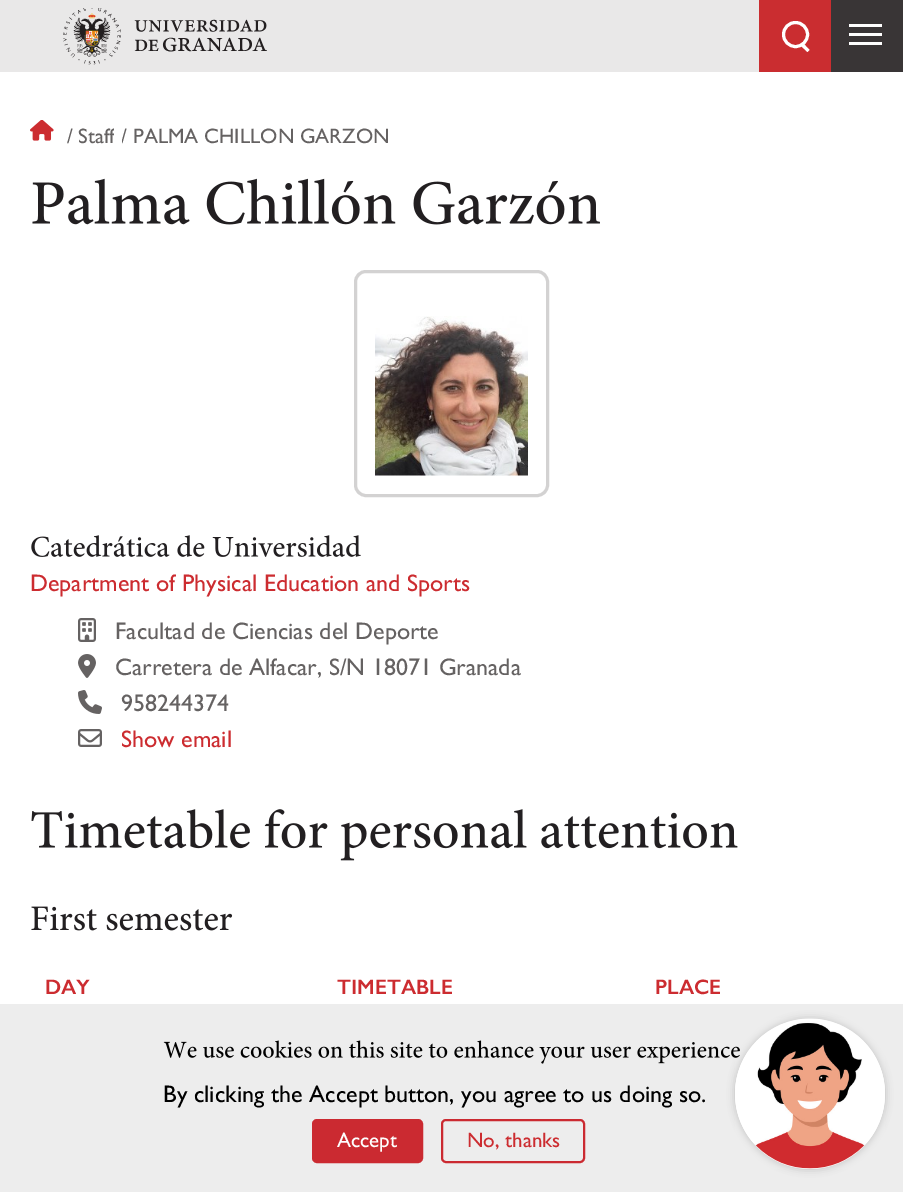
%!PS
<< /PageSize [903 1192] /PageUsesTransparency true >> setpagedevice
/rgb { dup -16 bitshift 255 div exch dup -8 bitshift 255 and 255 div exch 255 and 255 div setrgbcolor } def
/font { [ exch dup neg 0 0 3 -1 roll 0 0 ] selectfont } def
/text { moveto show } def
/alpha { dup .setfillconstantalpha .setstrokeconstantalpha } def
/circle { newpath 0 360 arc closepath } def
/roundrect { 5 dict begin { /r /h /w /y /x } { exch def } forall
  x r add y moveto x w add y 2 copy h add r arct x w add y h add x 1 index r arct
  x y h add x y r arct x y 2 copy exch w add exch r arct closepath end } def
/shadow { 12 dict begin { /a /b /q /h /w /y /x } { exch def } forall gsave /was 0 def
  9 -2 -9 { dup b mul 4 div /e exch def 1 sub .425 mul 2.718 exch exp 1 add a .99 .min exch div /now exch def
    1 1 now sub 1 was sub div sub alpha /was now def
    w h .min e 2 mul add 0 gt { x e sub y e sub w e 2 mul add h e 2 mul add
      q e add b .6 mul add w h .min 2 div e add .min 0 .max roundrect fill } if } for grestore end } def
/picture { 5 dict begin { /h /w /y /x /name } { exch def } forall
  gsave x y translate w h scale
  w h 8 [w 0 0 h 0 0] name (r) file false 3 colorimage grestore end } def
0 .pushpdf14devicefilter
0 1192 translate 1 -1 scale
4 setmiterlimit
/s1 { /GillSans-Regular 21 font 16#656262 rgb } def
/s2 { /GillSans-Regular 24 font 16#CC2C30 rgb } def
/s3 { /GillSans-Regular 24 font 16#656262 rgb } def
/s4 { /GillSans-SemiBold 21 font 16#CC2C30 rgb } def
/s5 { /GillSans-Regular 24 font 16#000000 rgb } def
/s6 { /GillSans-Regular 21 font 16#FEFFFF rgb } def
/s7 { /GillSans-Regular 21 font 16#CC2C30 rgb } def
16#FFFFFF rgb
0 0 903 1192 rectfill
16#E9E8E8 rgb
0 0 759 72 rectfill
(pic1.raw) 63 8 204 57 picture
16#CA2D30 rgb
759 0 72 72 rectfill
16#FFFFFF rgb
3 setlinewidth
795.5 34.5 12 circle stroke
802.5 42.5 moveto 809.5 50 lineto 807.5 52 lineto 800 45 lineto closepath fill
16#393536 rgb
831 0 72 72 rectfill
16#FFFFFF rgb
849 33 33 3 rectfill
849 24 33 3 rectfill
849 42 33 3 rectfill
(pic2.raw) 30 120 24 21 picture
s1
(/) 67 143 text
gsave
66 120 48 30 rectclip
(Staff) 78 143 text
grestore
gsave
122 120 267 30 rectclip
(/) 121 143 text
grestore
(PALMA CHILLON GARZON) 133 143 text
(pic3.raw) 32 178 568 47 picture
16#D3D2D2 rgb
355.5 271.5 192 224 10.5 roundrect stroke
(pic4.raw) 375 316 153 160 picture
(pic5.raw) 31 535 330 22 picture
s2
(Department of Physical Education and Sports) 30 591 text
(pic6.raw) 78 618 18 24 picture
s3
(Facultad de Ciencias del Deporte) 115 639 text
(pic7.raw) 78 654 18 24 picture
(Carretera de Alfacar, S/N 18071 Granada) 115 675 text
(pic8.raw) 78 690 24 24 picture
(958244374) 121 711 text
(pic9.raw) 78 729 24 18 picture
s2
(Show email) 121 747 text
(pic10.raw) 31 809 707 52 picture
(pic11.raw) 31 906 202 25 picture
s4
(DAY) 45 994 text
(TIMETABLE) 337 994 text
(PLACE) 655 994 text
16#EDEDED rgb
0 1004 903 188 rectfill
(pic12.raw) 163 1040 577 24 picture
s5
(By clicking the Accept button, you agree to us doing so.) 163 1102 text
16#CB2A31 rgb
313 1120 109 42 4 roundrect gsave fill grestore
2 setlinewidth
stroke
s6
(Accept) 337 1147 text
16#CB2A31 rgb
442 1120 142 42 4 roundrect stroke
s7
(No, thanks) 467 1147 text
16#000000 rgb
735 1019 150 150 75 4 0.2 shadow
16#FFFFFF rgb
810 1094 75 circle fill
(pic13.raw) 735 1018 150 151 picture
.poppdf14devicefilter showpage
